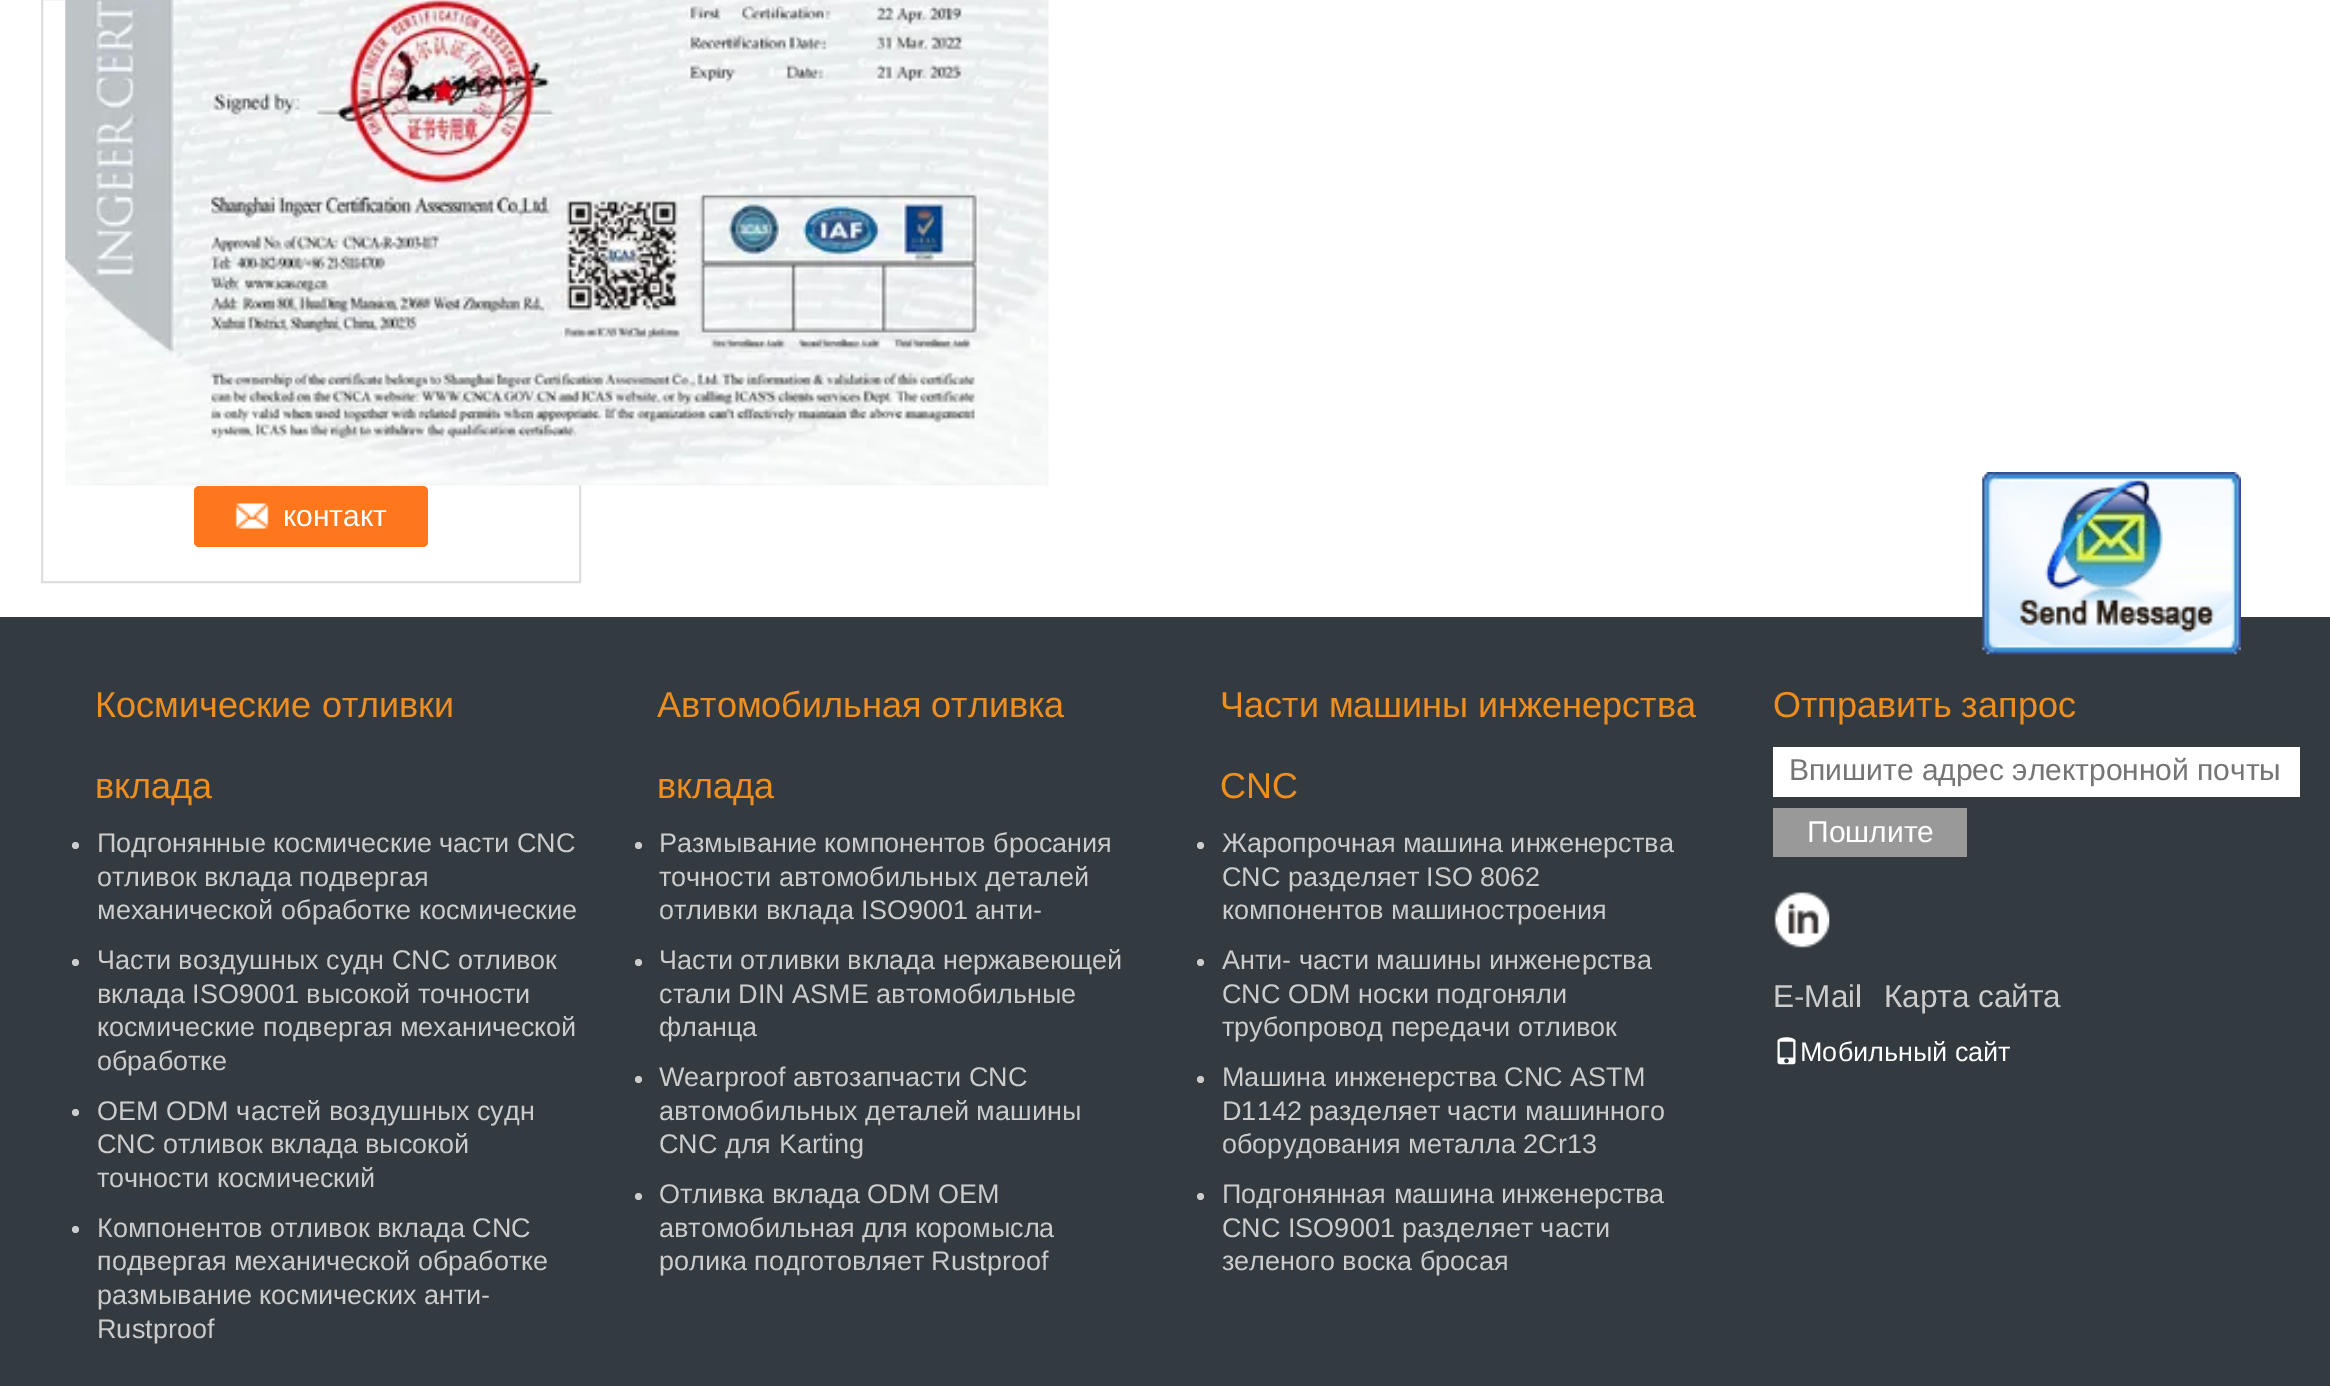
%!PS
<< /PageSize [2330 1386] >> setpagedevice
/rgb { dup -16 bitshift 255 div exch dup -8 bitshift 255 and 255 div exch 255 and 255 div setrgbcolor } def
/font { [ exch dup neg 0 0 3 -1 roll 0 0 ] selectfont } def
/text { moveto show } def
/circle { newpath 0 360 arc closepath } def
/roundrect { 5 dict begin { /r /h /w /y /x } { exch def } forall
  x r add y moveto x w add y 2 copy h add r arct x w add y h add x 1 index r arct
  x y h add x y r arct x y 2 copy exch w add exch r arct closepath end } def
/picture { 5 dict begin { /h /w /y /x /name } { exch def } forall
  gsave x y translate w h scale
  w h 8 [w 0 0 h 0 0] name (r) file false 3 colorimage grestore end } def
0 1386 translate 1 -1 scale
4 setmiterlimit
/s1 { /LiberationSans-Regular 30 font 16#FFFFFF rgb } def
/s2 { /LiberationSans-Regular 36 font 16#EE8E21 rgb } def
/s3 { /LiberationSans-Regular 27 font 16#CCCCCC rgb } def
/s4 { /LiberationSans-Regular 30 font 16#757575 rgb } def
/s5 { /LiberationSans-Regular 31.5 font 16#CCCCCC rgb } def
/s6 { /LiberationSans-Regular 27 font 16#FFFFFF rgb } def
16#FFFFFF rgb
0 0 2330 1386 rectfill
16#DEDEDE rgb
2 setlinewidth
42 -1 538 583 rectstroke
(pic1.raw) 65 0 984 486 picture
16#FF771C rgb
194 486 234 61 5 roundrect fill
(pic2.raw) 235 503 34 26 picture
s1
(контакт) 283 526 text
16#333B41 rgb
0 617 2330 769 rectfill
(pic3.raw) 1982 472 259 183 picture
s2
(Космические отливки) 95 717 text
(вклада) 95 798 text
16#CCCCCC rgb
75.5 845.5 3.5 circle fill
s3
(Подгонянные космические части CNC) 97 852 text
(отливок вклада подвергая) 97 886 text
(механической обработке космические) 97 919 text
75.5 962.5 3.5 circle fill
(Части воздушных судн CNC отливок) 97 969 text
(вклада ISO9001 высокой точности) 97 1003 text
(космические подвергая механической) 97 1036 text
(обработке) 97 1070 text
75.5 1112.5 3.5 circle fill
(OEM ODM частей воздушных судн) 97 1120 text
(CNC отливок вклада высокой) 97 1153 text
(точности космический) 97 1187 text
75.5 1229.5 3.5 circle fill
(Компонентов отливок вклада CNC) 97 1237 text
(подвергая механической обработке) 97 1270 text
(размывание космических анти-) 97 1304 text
(Rustproof) 97 1338 text
s2
(Автомобильная отливка) 657 717 text
(вклада) 657 798 text
16#CCCCCC rgb
638.5 845.5 3.5 circle fill
s3
(Размывание компонентов бросания) 659 852 text
(точности автомобильных деталей) 659 886 text
(отливки вклада ISO9001 анти-) 659 919 text
638.5 962.5 3.5 circle fill
(Части отливки вклада нержавеющей) 659 969 text
(стали DIN ASME автомобильные) 659 1003 text
(фланца) 659 1036 text
638.5 1079.5 3.5 circle fill
(Wearproof автозапчасти CNC) 659 1086 text
(автомобильных деталей машины) 659 1120 text
(CNC для Karting) 659 1153 text
638.5 1196.5 3.5 circle fill
(Отливка вклада ODM OEM) 659 1203 text
(автомобильная для коромысла) 659 1237 text
(ролика подготовляет Rustproof) 659 1270 text
s2
(Части машины инженерства) 1220 717 text
(CNC) 1220 798 text
16#CCCCCC rgb
1200.5 845.5 3.5 circle fill
s3
(Жаропрочная машина инженерства) 1222 852 text
(CNC разделяет ISO 8062) 1222 886 text
(компонентов машиностроения) 1222 919 text
1200.5 962.5 3.5 circle fill
(Анти- части машины инженерства) 1222 969 text
(CNC ODM носки подгоняли) 1222 1003 text
(трубопровод передачи отливок) 1222 1036 text
1200.5 1079.5 3.5 circle fill
(Машина инженерства CNC ASTM) 1222 1086 text
(D1142 разделяет части машинного) 1222 1120 text
(оборудования металла 2Cr13) 1222 1153 text
1200.5 1196.5 3.5 circle fill
(Подгонянная машина инженерства) 1222 1203 text
(CNC ISO9001 разделяет части) 1222 1237 text
(зеленого воска бросая) 1222 1270 text
s2
(Отправить запрос) 1773 717 text
16#FFFFFF rgb
1773 747 527 50 rectfill
s4
(Впишите адрес электронной почты) 1789 780 text
16#999999 rgb
1773 808 194 49 rectfill
s1
(Пошлите) 1807 842 text
(pic4.raw) 1774 892 56 56 picture
s5
(E-Mail) 1773 1007 text
(Карта сайта) 1884 1007 text
(pic5.raw) 1777 1037 19 28 picture
s6
(Мобильный сайт) 1800 1061 text
showpage
